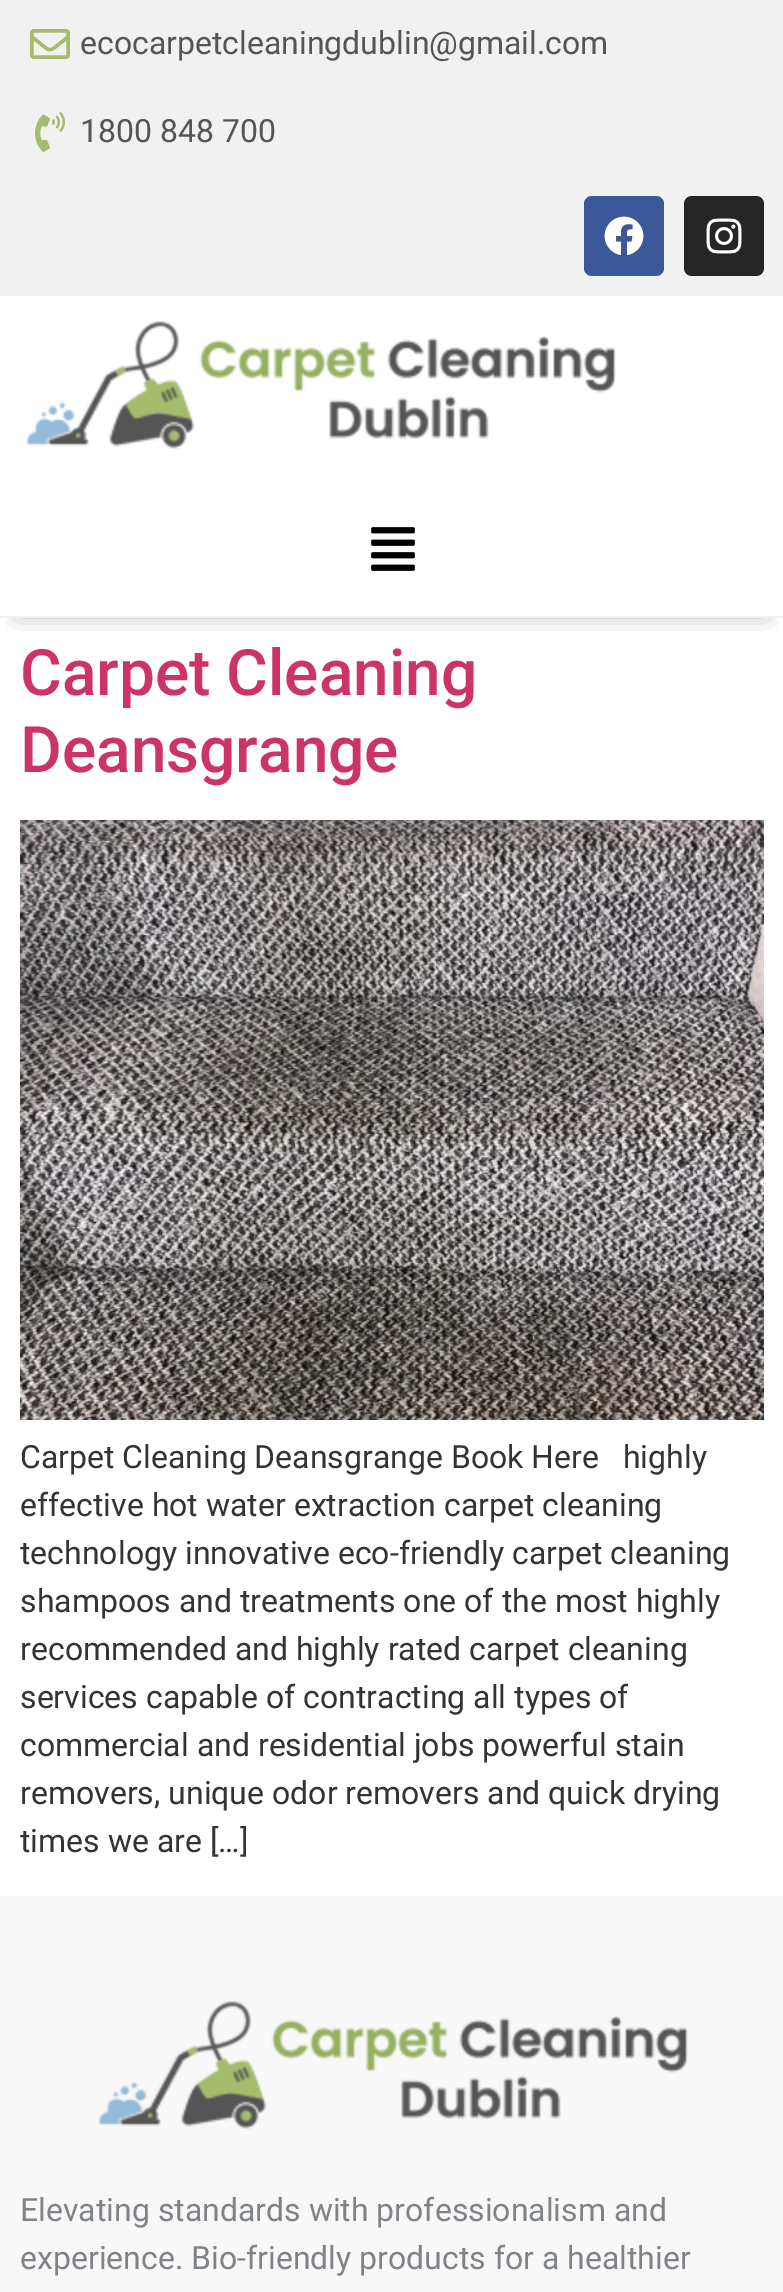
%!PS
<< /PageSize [783 2292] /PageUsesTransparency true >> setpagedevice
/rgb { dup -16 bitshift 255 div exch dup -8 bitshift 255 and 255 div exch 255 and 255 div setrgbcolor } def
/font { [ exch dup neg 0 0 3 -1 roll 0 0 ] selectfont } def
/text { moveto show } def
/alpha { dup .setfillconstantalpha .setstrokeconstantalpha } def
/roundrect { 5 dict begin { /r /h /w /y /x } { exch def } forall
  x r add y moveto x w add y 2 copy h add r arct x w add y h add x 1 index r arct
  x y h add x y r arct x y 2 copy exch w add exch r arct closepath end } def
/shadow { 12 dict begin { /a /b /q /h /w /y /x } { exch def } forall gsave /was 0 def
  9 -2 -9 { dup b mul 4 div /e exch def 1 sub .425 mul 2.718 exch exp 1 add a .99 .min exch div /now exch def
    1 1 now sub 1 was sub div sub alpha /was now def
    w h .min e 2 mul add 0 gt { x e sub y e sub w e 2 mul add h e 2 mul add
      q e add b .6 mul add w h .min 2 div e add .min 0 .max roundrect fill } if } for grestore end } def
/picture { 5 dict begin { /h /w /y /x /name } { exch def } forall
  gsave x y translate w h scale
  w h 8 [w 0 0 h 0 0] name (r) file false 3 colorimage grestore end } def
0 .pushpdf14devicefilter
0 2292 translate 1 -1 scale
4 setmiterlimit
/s1 { /Roboto-Regular 32 font 16#565455 rgb } def
/s2 { /Roboto-Medium 64 font 16#CC3366 rgb } def
/s3 { /Roboto-Regular 32 font 16#333333 rgb } def
/s4 { /Roboto-Regular 32 font 16#7F8387 rgb } def
16#FFFFFF rgb
0 0 783 2292 rectfill
16#F1F1F1 rgb
0 0 783 296 rectfill
(pic1.raw) 30 29 40 30 picture
s1
(ecocarpetcleaningdublin@gmail.com) 80 54 text
(pic2.raw) 35 112 30 40 picture
(1800 848 700) 80 142 text
16#3B5998 rgb
584 196 80 80 8 roundrect fill
(pic3.raw) 604 216 40 40 picture
16#262626 rgb
684 196 80 80 8 roundrect fill
(pic4.raw) 706 218 36 36 picture
gsave
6 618 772 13 rectclip
16#000000 rgb
18 324 748 286 0 12 0.5 shadow
grestore
16#F1F1F1 rgb
0 616 783 2 rectfill
(pic5.raw) 25 320 591 129 picture
(pic6.raw) 371 527 44 44 picture
s2
(Carpet Cleaning) 20 695 text
(Deansgrange) 20 772 text
(pic7.raw) 20 820 744 600 picture
s3
(Carpet Cleaning Deansgrange Book Here   highly) 20 1468 text
(effective hot water extraction carpet cleaning) 20 1516 text
(technology innovative eco-friendly carpet cleaning) 20 1564 text
(shampoos and treatments one of the most highly) 20 1612 text
(recommended and highly rated carpet cleaning) 20 1660 text
(services capable of contracting all types of) 20 1708 text
(commercial and residential jobs powerful stain) 20 1756 text
(removers, unique odor removers and quick drying) 20 1804 text
(times we are […]) 20 1852 text
16#F8F8F8 rgb
0 1896 783 396 rectfill
(pic8.raw) 97 2000 591 129 picture
s4
(Elevating standards with professionalism and) 20 2221 text
(experience. Bio-friendly products for a healthier) 20 2269 text
.poppdf14devicefilter showpage
